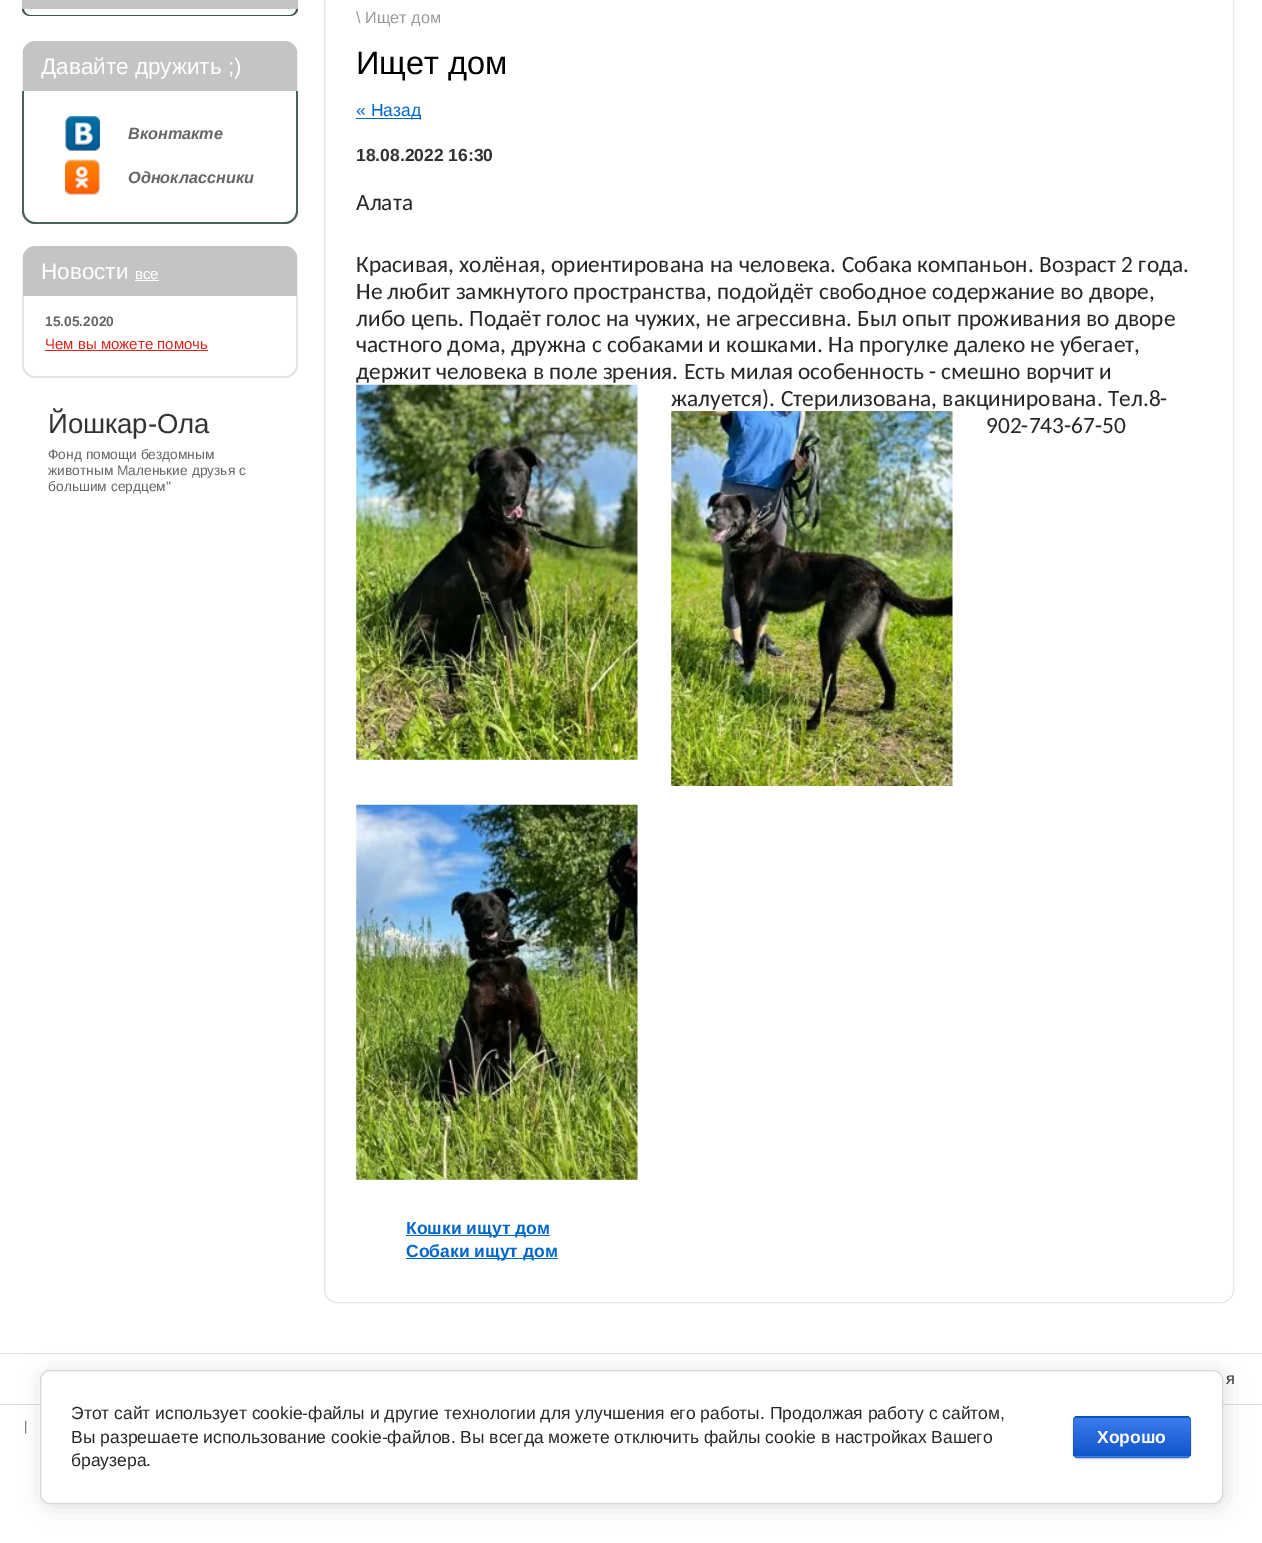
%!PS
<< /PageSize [1262 1543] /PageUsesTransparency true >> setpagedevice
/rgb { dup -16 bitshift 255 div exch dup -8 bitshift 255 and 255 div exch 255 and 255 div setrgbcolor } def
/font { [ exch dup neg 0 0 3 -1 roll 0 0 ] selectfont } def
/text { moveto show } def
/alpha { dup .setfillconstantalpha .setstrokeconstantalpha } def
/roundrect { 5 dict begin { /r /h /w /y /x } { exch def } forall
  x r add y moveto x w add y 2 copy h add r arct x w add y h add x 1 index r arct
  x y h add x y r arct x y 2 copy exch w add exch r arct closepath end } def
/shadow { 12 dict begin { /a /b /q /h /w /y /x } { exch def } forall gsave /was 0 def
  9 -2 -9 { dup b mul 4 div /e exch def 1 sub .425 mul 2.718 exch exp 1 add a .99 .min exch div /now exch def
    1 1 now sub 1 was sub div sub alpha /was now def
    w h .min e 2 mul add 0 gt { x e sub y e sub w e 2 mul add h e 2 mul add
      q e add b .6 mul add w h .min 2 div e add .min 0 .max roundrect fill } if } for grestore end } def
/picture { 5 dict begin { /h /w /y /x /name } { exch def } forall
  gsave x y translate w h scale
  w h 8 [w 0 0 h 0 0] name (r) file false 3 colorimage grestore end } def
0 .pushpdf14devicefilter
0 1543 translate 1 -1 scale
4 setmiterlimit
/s1 { /LiberationSans-Regular 22.5 font 16#FFFFFF rgb } def
/s2 { /LiberationSans-BoldItalic 16.25 font 16#666666 rgb } def
/s3 { /LiberationSans-Regular 15 font 16#FFFFFF rgb } def
/s4 { /LiberationSans-Bold 13.75 font 16#666666 rgb } def
/s5 { /LiberationSans-Regular 15 font 16#DA251C rgb } def
/s6 { /LiberationSans-Regular 27.5 font 16#333333 rgb } def
/s7 { /LiberationSans-Regular 13.75 font 16#666666 rgb } def
/s8 { /LiberationSans-Regular 16.25 font 16#999999 rgb } def
/s9 { /LiberationSans-Regular 32.5 font 16#000000 rgb } def
/s10 { /LiberationSans-Regular 17.5 font 16#0066CC rgb } def
/s11 { /LiberationSans-Bold 17.5 font 16#333333 rgb } def
/s12 { /Carlito-Regular 23.35 font 16#262626 rgb } def
/s13 { /LiberationSans-Bold 17.5 font 16#0066CC rgb } def
/s14 { /LiberationSans-Regular 16.25 font 16#333333 rgb } def
/s15 { /LiberationSans-Regular 17.5 font 16#262626 rgb } def
/s16 { /LiberationSans-Bold 17.5 font 16#FFFFFF rgb } def
16#FFFFFF rgb
0 0 1262 1543 rectfill
16#C4C4C4 rgb
22 0 276 9 rectfill
16#3E524D rgb
22 9 moveto 298 9 lineto 298 13 294 16 290 16 curveto 30 16 lineto 26 16 22 13 22 9 curveto closepath 24 9 moveto 296 9 lineto 296 12 293 15 290 15 curveto 30 15 lineto 27 15 24 12 24 9 curveto closepath eofill
(pic1.raw) 22 41 276 50 picture
s1
(Давайте дружить ;\)) 41 74 text
16#4A605B rgb
22 91 moveto 298 91 lineto 298 211 lineto 298 218 292 224 285 224 curveto 35 224 lineto 28 224 22 218 22 211 curveto closepath 24 91 moveto 296 91 lineto 296 211 lineto 296 217 291 222 285 222 curveto 35 222 lineto 29 222 24 217 24 211 curveto closepath eofill
(pic2.raw) 65 116 35 35 picture
s2
(Вконтакте) 128 139 text
(pic3.raw) 65 159 35 36 picture
(Одноклассники) 128 183 text
(pic1.raw) 22 246 276 50 picture
s1
(Новости) 41 279 text
s3
(все) 135 279 text
135 280 24 1 rectfill
16#E5E5E5 rgb
22 296 moveto 298 296 lineto 298 365 lineto 298 372 292 378 285 378 curveto 35 378 lineto 28 378 22 372 22 365 curveto closepath 24 296 moveto 296 296 lineto 296 365 lineto 296 371 291 376 285 376 curveto 35 376 lineto 29 376 24 371 24 365 curveto closepath eofill
s4
(15.05.2020) 45 326 text
s5
(Чем вы можете помочь) 45 349 text
45 350 163 1 rectfill
s6
(Йошкар-Ола) 48 433 text
s7
(Фонд помощи бездомным) 48 459 text
(животным Маленькие друзья с) 48 475 text
(большим сердцем") 48 491 text
16#E5E5E5 rgb
324.5 -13.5 909 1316 12.5 roundrect stroke
s8
(\\ Ищет дом) 356 23 text
s9
(Ищет дом) 356 74 text
16#0066CC rgb
356 118 65 1 rectfill
s10
(« Назад) 356 116 text
s11
(18.08.2022 16:30) 356 161 text
s12
(Алата) 356 210 text
(Красивая, холёная, ориентирована на человека. Собака компаньон. Возраст 2 года.) 356 272 text
(Не любит замкнутого пространства, подойдёт свободное содержание во дворе,) 356 299 text
(либо цепь. Подаёт голос на чужих, не агрессивна. Был опыт проживания во дворе) 356 326 text
(частного дома, дружна с собаками и кошками. На прогулке далеко не убегает,) 356 352 text
(держит человека в поле зрения. Есть милая особенность - смешно ворчит и) 356 379 text
(pic4.raw) 356 384 282 376 picture
(жалуется\). Стерилизована, вакцинирована. Тел.8-) 671 406 text
(pic5.raw) 671 411 282 375 picture
(902-743-67-50) 986 433 text
(pic6.raw) 356 804 282 376 picture
16#0066CC rgb
406 1235 144 1 rectfill
s13
(Кошки ищут дом) 406 1234 text
406 1258 152 1 rectfill
(Собаки ищут дом) 406 1257 text
16#DFDFDF rgb
0 1353 1262 1 rectfill
0 1404 1262 1 rectfill
s14
(я) 1226 1384 text
(pic7.raw) 25 1421 2 13 picture
16#000000 rgb
43 1373 1182 133 10 11 0.14 shadow
16#FFFFFF rgb
40.5 1370.5 1182 133 9.5 roundrect gsave fill grestore
16#D6D6D6 rgb
stroke
s15
(Этот сайт использует cookie-файлы и другие технологии для улучшения его работы. Продолжая работу с сайтом,) 71 1419 text
(Вы разрешаете использование cookie-файлов. Вы всегда можете отключить файлы cookie в настройках Вашего) 71 1443 text
(браузера.) 71 1466 text
16#000000 rgb
1073 1418 118 41 5 0.5 0.2 shadow
gsave
1073 1416 118 42 5 roundrect clip newpath
gsave 1073 1416 moveto 1191 1416 lineto 1191 1418 lineto 1073 1418 lineto closepath clip newpath
<< /ShadingType 2 /ColorSpace /DeviceRGB /Coords [1132 1379 1132 1418] /Extend [true true] /Function << /FunctionType 2 /Domain [0 1] /C0 [0.231 0.486 0.937] /C1 [0.067 0.333 0.8] /N 1 >> >> shfill grestore
gsave 1073 1418 moveto 1191 1418 lineto 1191 1456 lineto 1073 1456 lineto closepath clip newpath
<< /ShadingType 2 /ColorSpace /DeviceRGB /Coords [1132 1418 1132 1456] /Extend [true true] /Function << /FunctionType 2 /Domain [0 1] /C0 [0.231 0.486 0.937] /C1 [0.067 0.333 0.8] /N 1 >> >> shfill grestore
gsave 1073 1456 moveto 1191 1456 lineto 1191 1458 lineto 1073 1458 lineto closepath clip newpath
<< /ShadingType 2 /ColorSpace /DeviceRGB /Coords [1132 1456 1132 1495] /Extend [true true] /Function << /FunctionType 2 /Domain [0 1] /C0 [0.231 0.486 0.937] /C1 [0.067 0.333 0.8] /N 1 >> >> shfill grestore
grestore
0.1 alpha
1073.5 1416.5 117 41 4.5 roundrect stroke
1 alpha
s16
(Хорошо) 1097 1443 text
.poppdf14devicefilter showpage
